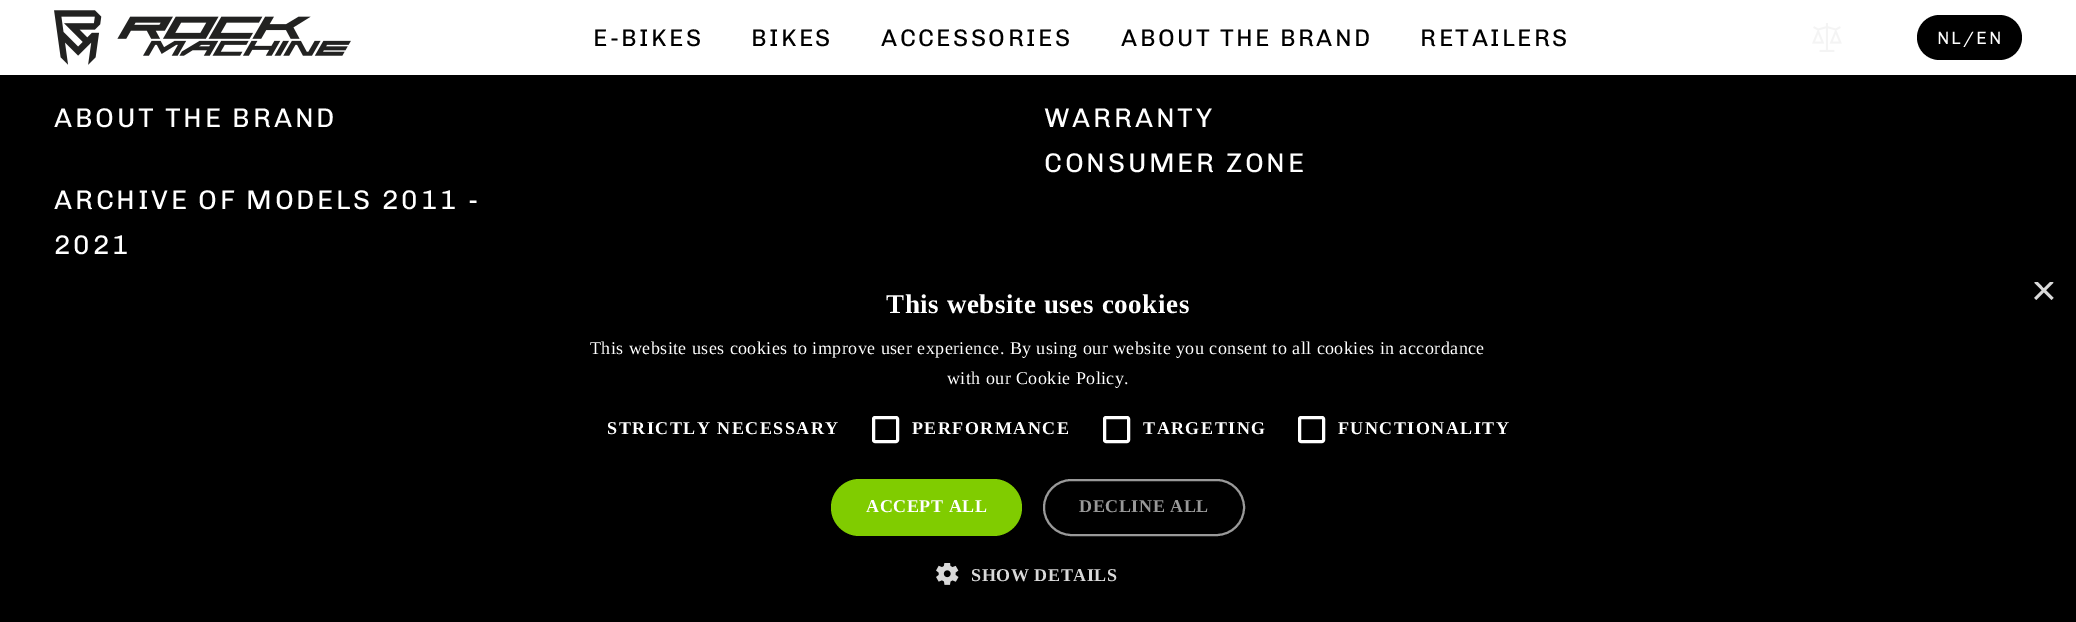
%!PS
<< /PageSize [2076 622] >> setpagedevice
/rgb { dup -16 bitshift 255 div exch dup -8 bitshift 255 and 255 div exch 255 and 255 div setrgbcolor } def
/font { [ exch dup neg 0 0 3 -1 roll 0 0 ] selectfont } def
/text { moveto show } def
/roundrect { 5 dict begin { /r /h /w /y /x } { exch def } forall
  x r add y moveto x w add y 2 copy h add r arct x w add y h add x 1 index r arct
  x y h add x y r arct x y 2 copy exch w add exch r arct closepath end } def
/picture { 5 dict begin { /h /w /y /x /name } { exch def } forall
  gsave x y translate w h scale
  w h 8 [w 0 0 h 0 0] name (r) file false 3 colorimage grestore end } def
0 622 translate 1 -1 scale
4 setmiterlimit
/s1 { /LiberationSans-Regular 44 font 16#D9D9D9 rgb } def
16#000000 rgb
0 0 2076 622 rectfill
16#FFFFFF rgb
0 0 2076 75 rectfill
(pic1.raw) 54 10 297 55 picture
/Chivo-Regular 24 font
16#000000 rgb
593 46 moveto 2.4 0 (E-BIKES) ashow
751 46 moveto 2.4 0 (BIKES) ashow
881 46 moveto 2.4 0 (ACCESSORIES) ashow
1121 46 moveto 2.4 0 (ABOUT THE BRAND) ashow
1420 46 moveto 2.4 0 (RETAILERS) ashow
(pic2.raw) 1812 23 30 29 picture
1917 15 105 45 22.5 roundrect fill
/Chivo-Regular 18 font
16#FFFFFF rgb
1937 44 moveto 2 0 (NL/EN) ashow
/Chivo-Regular 27 font
54 127 moveto 2.7 0 (ABOUT THE BRAND) ashow
54 209 moveto 2.7 0 (ARCHIVE OF MODELS 2011 -) ashow
54 254 moveto 2.7 0 (2021) ashow
1044 127 moveto 2.7 0 (WARRANTY) ashow
1044 172 moveto 2.7 0 (CONSUMER ZONE) ashow
gsave
2031 282 23 23 rectclip
s1
(×) 2031 305 text
grestore
/LiberationSerif-Bold 27 font
886 313 moveto 0.6 0 (This website uses cookies) ashow
/LiberationSerif-Regular 18 font
590 354 moveto 0.45 0 (This website uses cookies to improve user experience. By using our website you consent to all cookies in accordance) ashow
947 384 moveto 0.45 0 (with our Cookie Policy.) ashow
/LiberationSerif-Bold 18 font
607 434 moveto 1.5 0 (STRICTLY NECESSARY) ashow
3 setlinewidth
873.5 417.5 24 24 1.5 roundrect stroke
912 434 moveto 1.5 0 (PERFORMANCE) ashow
1104.5 417.5 24 24 1.5 roundrect stroke
1143 434 moveto 1.5 0 (TARGETING) ashow
1299.5 417.5 24 24 1.5 roundrect stroke
1338 434 moveto 1.5 0 (FUNCTIONALITY) ashow
16#80CC00 rgb
831 479 191 57 28.5 roundrect fill
16#FFFFFF rgb
866 512 moveto 0.6 0 (ACCEPT ALL) ashow
16#999999 rgb
2 setlinewidth
1044 480 200 55 27.5 roundrect stroke
1079 512 moveto 0.6 0 (DECLINE ALL) ashow
(pic3.raw) 936 563 23 22 picture
16#D9D9D9 rgb
971 581 moveto 0.6 0 (SHOW DETAILS) ashow
showpage
